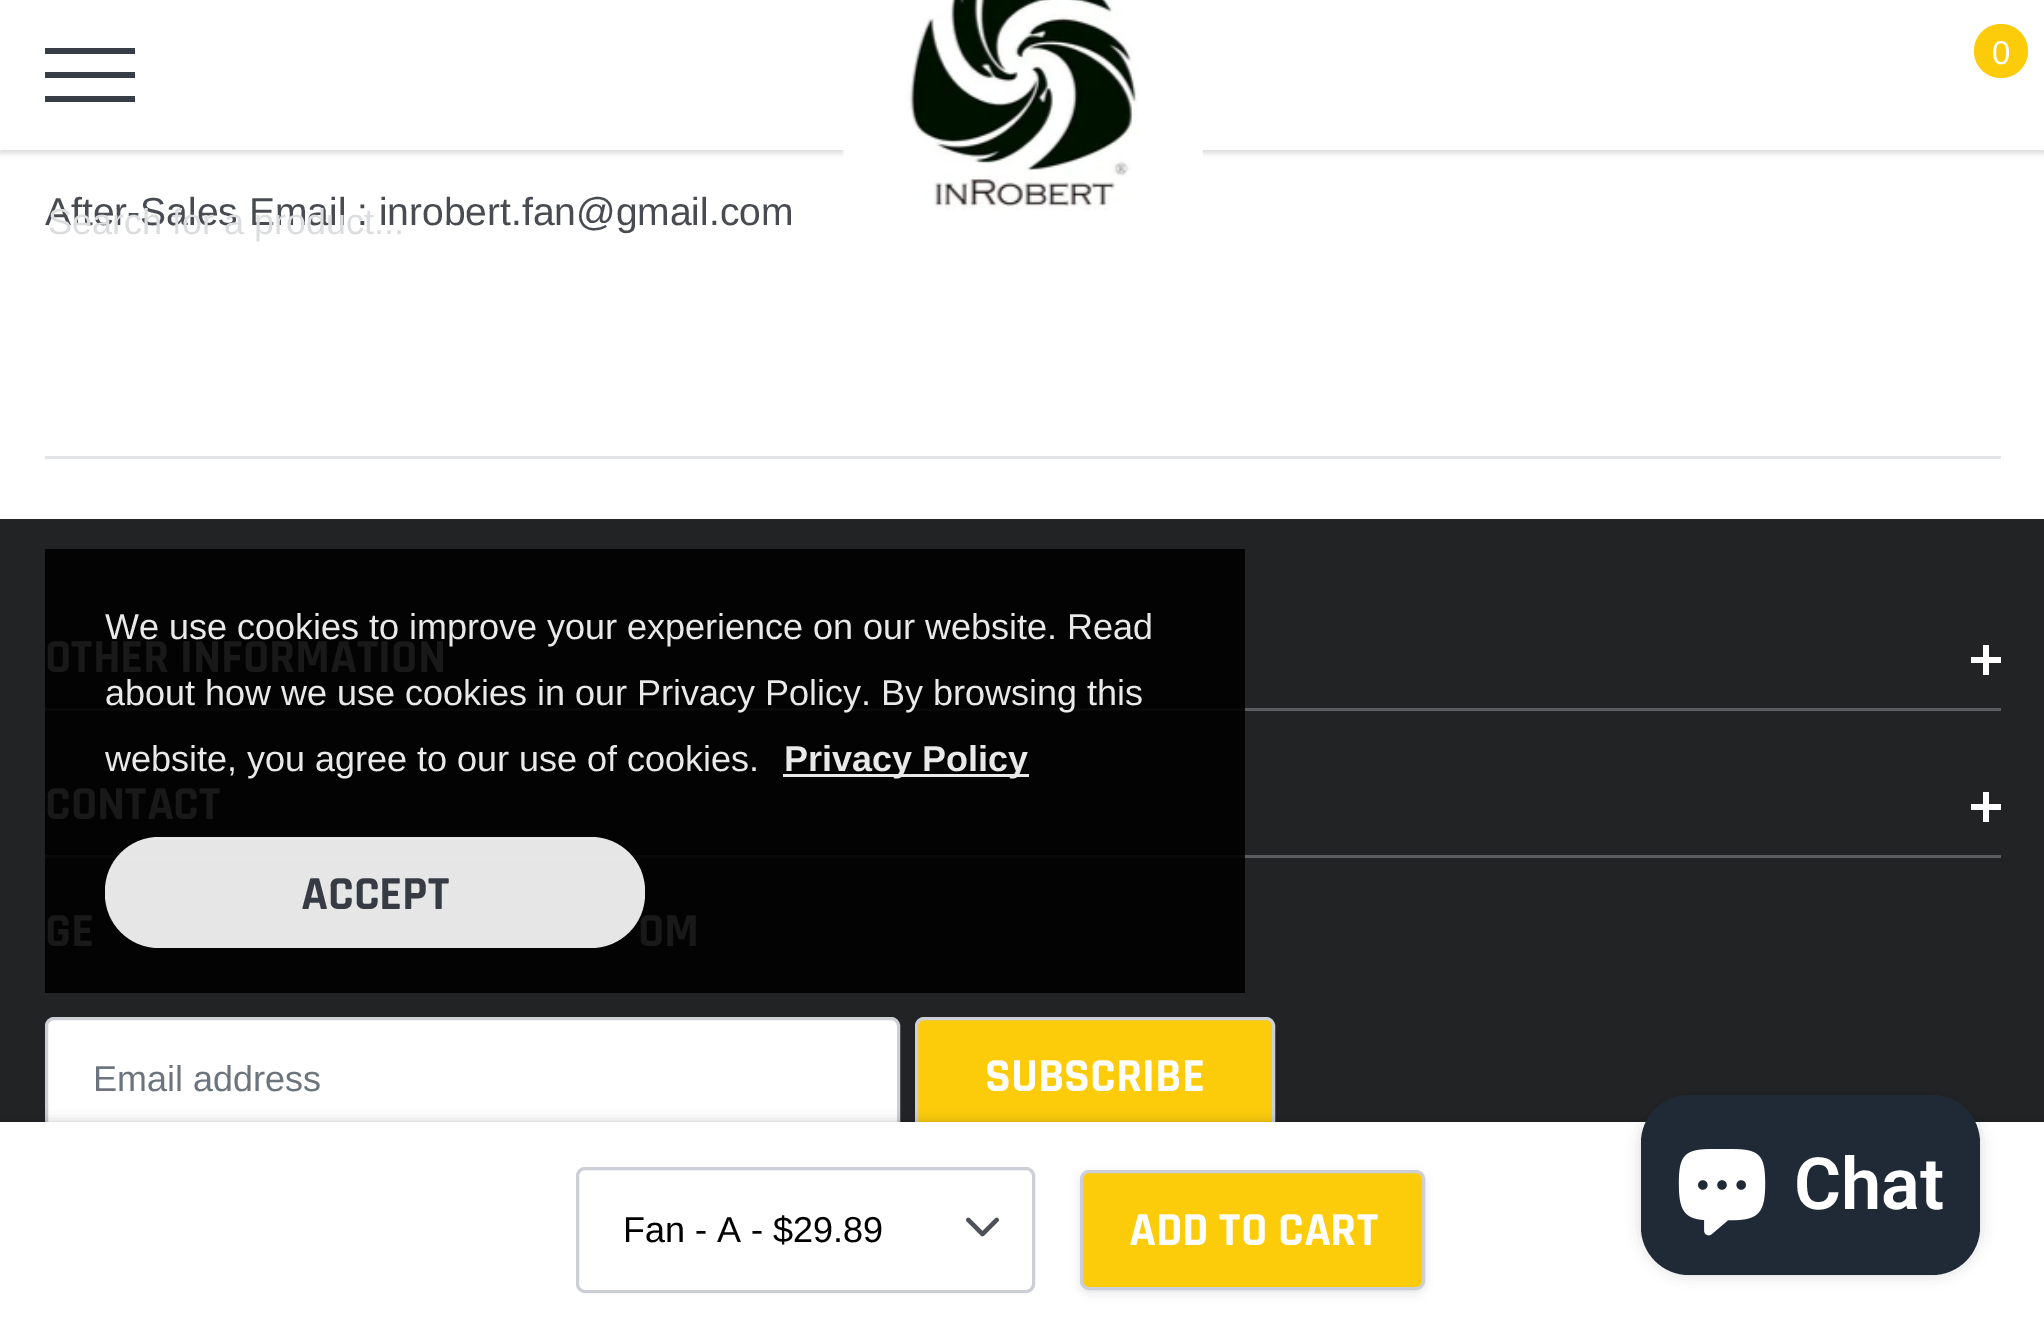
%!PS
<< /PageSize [2044 1336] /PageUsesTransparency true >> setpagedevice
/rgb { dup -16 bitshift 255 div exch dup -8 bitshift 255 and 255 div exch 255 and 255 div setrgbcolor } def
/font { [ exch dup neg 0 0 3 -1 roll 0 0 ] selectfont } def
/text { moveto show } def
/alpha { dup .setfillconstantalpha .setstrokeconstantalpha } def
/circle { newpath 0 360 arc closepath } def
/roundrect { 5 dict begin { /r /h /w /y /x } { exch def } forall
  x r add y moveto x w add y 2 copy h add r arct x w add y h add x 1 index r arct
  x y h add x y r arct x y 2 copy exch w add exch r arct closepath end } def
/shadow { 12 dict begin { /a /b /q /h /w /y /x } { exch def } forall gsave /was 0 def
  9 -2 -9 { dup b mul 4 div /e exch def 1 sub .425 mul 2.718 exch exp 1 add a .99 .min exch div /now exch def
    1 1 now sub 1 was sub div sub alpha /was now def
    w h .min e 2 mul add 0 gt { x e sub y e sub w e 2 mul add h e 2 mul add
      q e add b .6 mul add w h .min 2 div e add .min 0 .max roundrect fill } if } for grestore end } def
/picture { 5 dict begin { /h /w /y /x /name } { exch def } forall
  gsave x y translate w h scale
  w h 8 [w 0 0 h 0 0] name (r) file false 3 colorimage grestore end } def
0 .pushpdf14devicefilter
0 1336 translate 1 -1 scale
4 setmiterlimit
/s1 { /Arimo-Regular 33 font 16#FFFFFF rgb } def
/s2 { /Arimo-Regular 39 font 16#484B51 rgb } def
/s3 { /Arimo-Regular 36 font 16#DCDDDE rgb } def
/s4 { /Arimo-Regular 36 font 16#000000 rgb } def
/s5 { /Rajdhani-Bold 48 font 16#FFFFFF rgb } def
/s6 { /Rajdhani-Bold 48 font 16#191919 rgb } def
/s7 { /Arimo-Regular 36 font 16#6C757D rgb } def
/s8 { /Arimo-Regular 36 font 16#E9E9E9 rgb } def
/s9 { /Arimo-Bold 36 font 16#E9E9E9 rgb } def
/s10 { /Rajdhani-Bold 48 font 16#363B44 rgb } def
/s11 { /Roboto-SemiBold 72 font 16#FFFFFF rgb } def
16#FFFFFF rgb
0 0 2044 1336 rectfill
16#000000 rgb
0 3 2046 150 0 3 0.15 shadow
16#FFFFFF rgb
0 0 2044 150 rectfill
(pic1.raw) 842 0 361 211 picture
16#FCCC0B rgb
2001 51 27 circle fill
s1
(0) 1992 64 text
16#383E47 rgb
45 72 90 6 rectfill
45 48 90 6 rectfill
45 96 90 6 rectfill
s2
(After-Sales Email : inrobert.fan@gmail.com) 45 225 text
s3
(Search for a product...) 48 234 text
16#222325 rgb
0 519 2044 603 rectfill
16#FFFFFF rgb
46.5 1018.5 852 123 7.5 roundrect gsave fill grestore
16#CCCFD6 rgb
3 setlinewidth
stroke
16#000000 rgb
915 1020 360 126 9 4.5 0.1 shadow
16#FCCC0B rgb
916.5 1018.5 357 123 7.5 roundrect gsave fill grestore
16#CCCFD6 rgb
stroke
16#000000 rgb
0 1122 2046 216 0 6 0.2 shadow
16#FFFFFF rgb
0 1122 2044 214 rectfill
16#CCCFD6 rgb
577.5 1168.5 456 123 7.5 roundrect stroke
s4
(Fan - A - $29.89) 623 1242 text
(pic2.raw) 966 1217 33 20 picture
1080 1173 345 120 9 4.5 0.1 shadow
16#FCCC0B rgb
1081.5 1171.5 342 117 7.5 roundrect gsave fill grestore
16#CCCFD6 rgb
stroke
s5
(ADD TO CART) 1129 1245 text
16#E2E4E8 rgb
45 456 1956 3 rectfill
16#030304 rgb
45 549 1200 444 rectfill
16#5C5D60 rgb
1245 708 756 3 rectfill
16#09090A rgb
45 708 1200 3 rectfill
s6
(OTHER INFORMATION) 45 672 text
16#FFFFFF rgb
1983 645 6 30 rectfill
1971 657 30 6 rectfill
16#5C5D60 rgb
1245 855 756 3 rectfill
16#09090A rgb
45 855 1200 3 rectfill
s6
(CONTACT) 45 819 text
16#FFFFFF rgb
1983 792 6 30 rectfill
1971 804 30 6 rectfill
s6
(GE) 45 946 text
(OM) 638 946 text
s7
(Email address) 93 1091 text
s5
(SUBSCRIBE) 985 1091 text
s8
(We use cookies to improve your experience on our website. Read) 105 639 text
(about how we use cookies in our Privacy Policy. By browsing this) 105 705 text
(website, you agree to our use of cookies.) 105 771 text
783 774 246 3 rectfill
s9
(Privacy Policy) 784 771 text
0.9 alpha
16#FFFFFF rgb
105 837 540 111 54 roundrect fill
1 alpha
s10
(ACCEPT) 301 909 text
16#000000 rgb
1641 1095 339 180 48 7.5 0.15 shadow
16#202A36 rgb
1641 1095 339 180 48 roundrect fill
(pic3.raw) 1678 1149 88 87 picture
s11
(Chat) 1794 1209 text
.poppdf14devicefilter showpage
